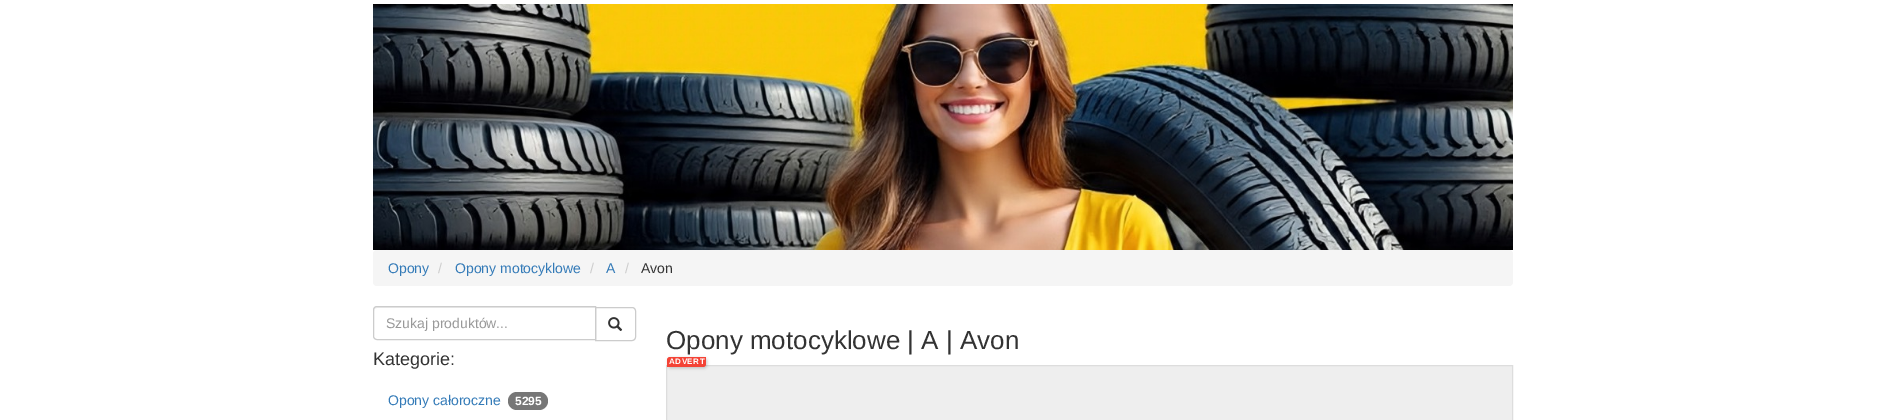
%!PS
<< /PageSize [1886 420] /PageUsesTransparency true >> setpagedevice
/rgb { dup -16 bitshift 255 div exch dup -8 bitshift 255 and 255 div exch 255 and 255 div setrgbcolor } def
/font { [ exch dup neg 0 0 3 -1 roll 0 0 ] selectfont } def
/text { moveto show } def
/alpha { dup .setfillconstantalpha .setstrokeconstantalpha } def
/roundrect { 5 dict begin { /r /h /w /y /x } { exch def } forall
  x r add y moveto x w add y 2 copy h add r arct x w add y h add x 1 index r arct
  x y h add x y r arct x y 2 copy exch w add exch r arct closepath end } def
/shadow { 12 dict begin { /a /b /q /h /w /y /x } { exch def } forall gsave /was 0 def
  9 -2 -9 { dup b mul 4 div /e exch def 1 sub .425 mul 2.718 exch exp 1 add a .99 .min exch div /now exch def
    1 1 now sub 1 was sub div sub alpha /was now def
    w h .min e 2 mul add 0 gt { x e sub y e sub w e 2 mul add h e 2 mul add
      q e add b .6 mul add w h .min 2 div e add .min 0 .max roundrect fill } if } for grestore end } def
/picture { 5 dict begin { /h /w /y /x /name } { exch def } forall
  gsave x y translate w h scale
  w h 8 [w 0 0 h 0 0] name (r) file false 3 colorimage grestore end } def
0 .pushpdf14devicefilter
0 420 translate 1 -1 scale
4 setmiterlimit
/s1 { /LiberationSans-Regular 14 font 16#337AB7 rgb } def
/s2 { /LiberationSans-Regular 14 font 16#CCCCCC rgb } def
/s3 { /LiberationSans-Regular 14 font 16#333333 rgb } def
/s4 { /LiberationSans-Regular 14 font 16#999999 rgb } def
/s5 { /LiberationSans-Regular 18 font 16#333333 rgb } def
/s6 { /LiberationSans-Bold 12 font 16#FFFFFF rgb } def
/s7 { /LiberationSans-Regular 26 font 16#333333 rgb } def
16#FFFFFF rgb
0 0 1886 420 rectfill
(pic1.raw) 373 4 1140 246 picture
16#F5F5F5 rgb
373 250 1140 36 4 roundrect fill
s1
(Opony) 388 273 text
s2
(/) 438 273 text
s1
(Opony motocyklowe) 455 273 text
s2
(/) 590 273 text
s1
(A) 606 273 text
s2
(/) 625 273 text
s3
(Avon) 641 273 text
16#CCCCCC rgb
595.5 307.5 moveto 632 307.5 lineto 634 307.5 635.5 309 635.5 311 curveto 635.5 337 lineto 635.5 339 634 340.5 632 340.5 curveto 595.5 340.5 lineto closepath stroke
16#FFFFFF rgb
377 306 moveto 596 306 lineto 596 340 lineto 377 340 lineto 375 340 373 338 373 336 curveto 373 310 lineto 373 308 375 306 377 306 curveto closepath fill
16#ECECEC rgb
377 308 moveto 595 308 lineto 595 307 lineto 377 307 lineto 375 307 374 308 374 310 curveto 374 311 lineto 374 309 375 308 377 308 curveto closepath fill
16#CCCCCC rgb
377 306.5 moveto 595.5 306.5 lineto 595.5 339.5 lineto 377 339.5 lineto 375 339.5 373.5 338 373.5 336 curveto 373.5 310 lineto 373.5 308 375 306.5 377 306.5 curveto closepath stroke
s4
(Szukaj produktów...) 386 328 text
(pic2.raw) 608 317 15 14 picture
s5
(Kategorie:) 373 365 text
s1
(Opony całoroczne) 388 405 text
16#777777 rgb
508 392 40 18 9 roundrect fill
s6
(5295) 515 405 text
s7
(Opony motocyklowe | A | Avon) 666 349 text
16#EEEEEE rgb
666.5 365.5 moveto 1512.5 365.5 lineto 1512.5 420.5 lineto 666.5 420.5 lineto closepath gsave fill grestore
16#DDDDDD rgb
stroke
16#000000 rgb
668 358 39 10 3 1.5 0.2 shadow
16#F44336 rgb
670 357 moveto 706 357 lineto 706 364 lineto 706 365.5 704.5 367 703 367 curveto 667 367 lineto 667 360 lineto 667 358.5 668.5 357 670 357 curveto closepath fill
/LiberationSans-Bold 8 font
16#FFFFFF rgb
669 364 moveto 0.5 0 (ADVERT) ashow
.poppdf14devicefilter showpage
